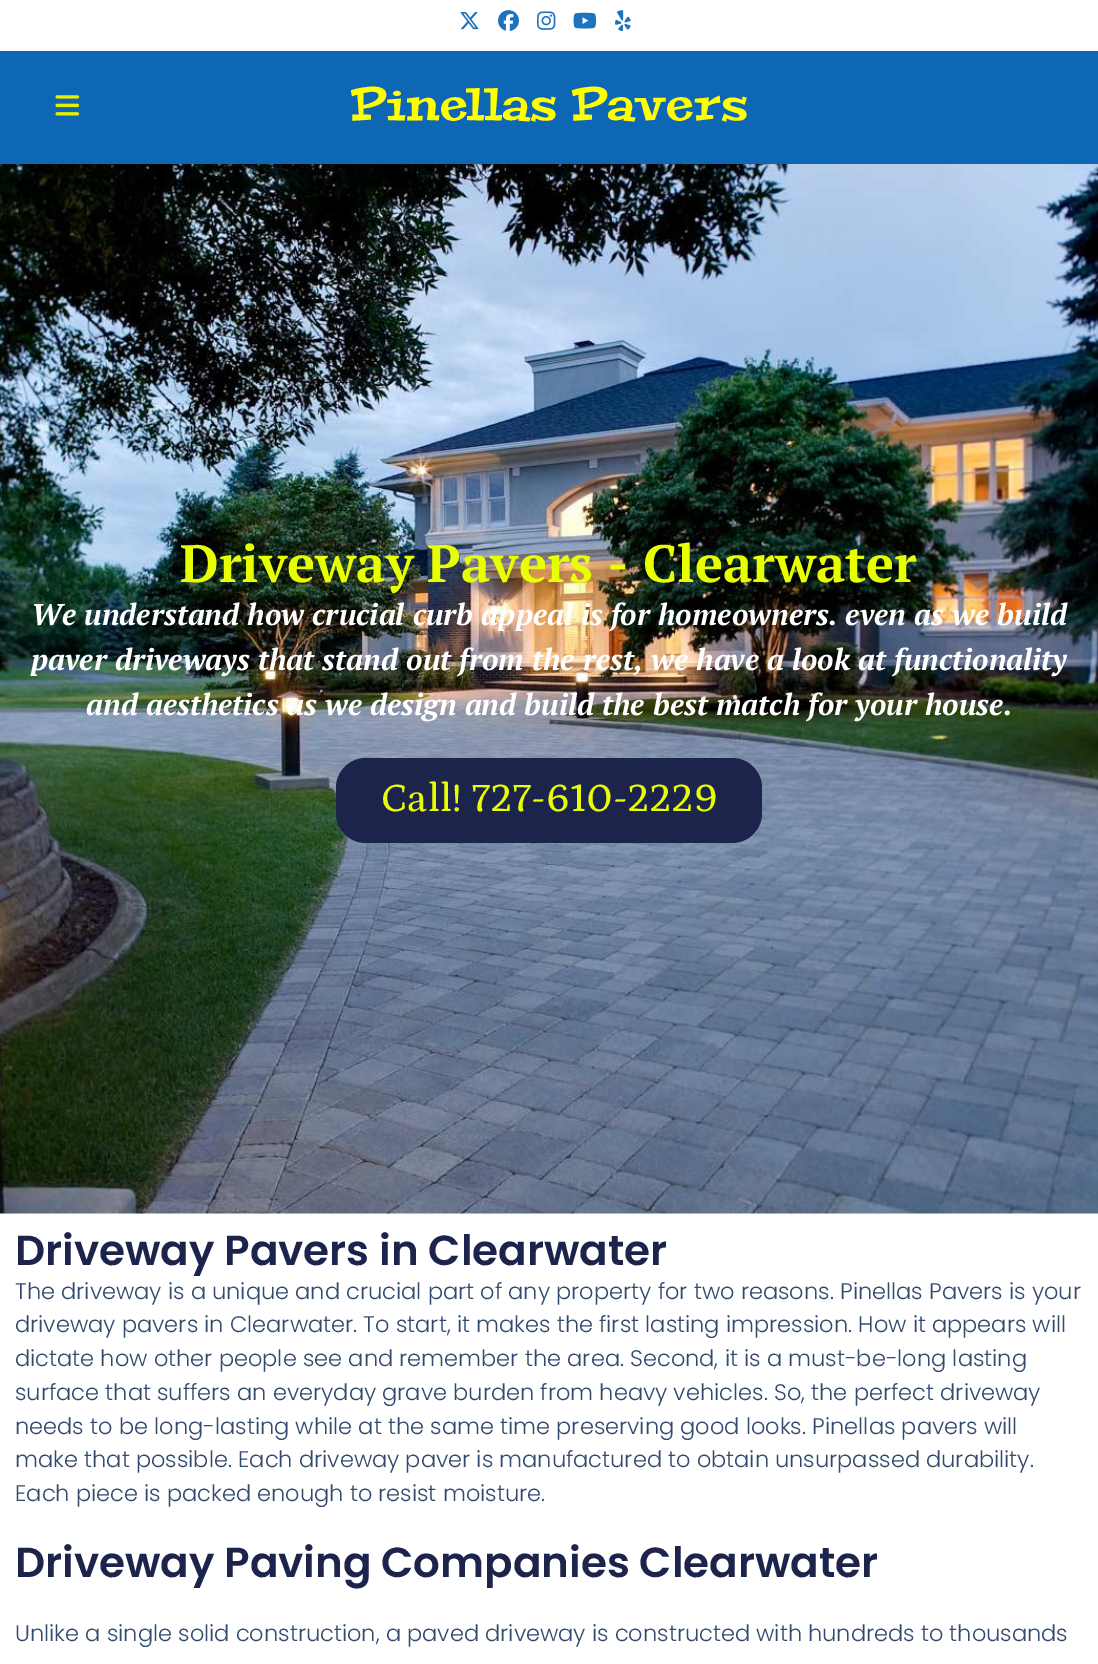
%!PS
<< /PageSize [1098 1664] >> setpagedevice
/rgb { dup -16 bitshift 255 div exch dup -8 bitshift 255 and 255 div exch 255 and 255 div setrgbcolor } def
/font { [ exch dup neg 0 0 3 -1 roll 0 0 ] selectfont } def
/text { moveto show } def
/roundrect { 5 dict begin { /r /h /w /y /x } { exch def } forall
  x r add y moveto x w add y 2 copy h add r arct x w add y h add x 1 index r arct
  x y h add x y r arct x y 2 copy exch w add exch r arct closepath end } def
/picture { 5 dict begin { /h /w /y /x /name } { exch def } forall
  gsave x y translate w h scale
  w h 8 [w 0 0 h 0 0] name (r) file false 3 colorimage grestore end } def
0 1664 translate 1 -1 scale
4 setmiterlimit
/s1 { /Peralta-Regular 45 font 16#FFFF00 rgb } def
/s2 { /PTSerif-Bold 52.5 font 16#E7FF00 rgb } def
/s3 { /PTSerif-BoldItalic 30 font 16#FFFFFF rgb } def
/s4 { /Petrona-Medium 40.5 font 16#E7FF00 rgb } def
/s5 { /Poppins-SemiBold 42 font 16#1C244B rgb } def
/s6 { /Poppins-Light 22.5 font 16#324A6D rgb } def
16#FFFFFF rgb
0 0 1098 1664 rectfill
(pic1.raw) 460 12 19 18 picture
(pic2.raw) 498 10 21 21 picture
(pic3.raw) 537 11 19 19 picture
(pic4.raw) 573 12 23 17 picture
(pic5.raw) 615 10 16 22 picture
16#0E67B4 rgb
0 51 1098 113 rectfill
(pic6.raw) 55 95 25 21 picture
s1
(Pinellas Pavers) 350 120 text
(pic7.raw) 0 164 1098 1050 picture
s2
(Driveway Pavers - Clearwater) 180 582 text
s3
(We understand how crucial curb appeal is for homeowners. even as we build) 31 625 text
(paver driveways that stand out from the rest, we have a look at functionality) 31 670 text
(and aesthetics as we design and build the best match for your house.) 86 715 text
16#1C244B rgb
336 758 426 85 30 roundrect fill
s4
(Call! 727-610-2229) 381 811 text
s5
(Driveway Pavers in Clearwater) 15 1265 text
s6
(The driveway is a unique and crucial part of any property for two reasons. Pinellas Pavers is your) 15 1299 text
(driveway pavers in Clearwater. To start, it makes the first lasting impression. How it appears will) 15 1332 text
(dictate how other people see and remember the area. Second, it is a must-be-long lasting) 15 1366 text
(surface that suffers an everyday grave burden from heavy vehicles. So, the perfect driveway) 15 1400 text
(needs to be long-lasting while at the same time preserving good looks. Pinellas pavers will) 15 1434 text
(make that possible. Each driveway paver is manufactured to obtain unsurpassed durability.) 15 1467 text
(Each piece is packed enough to resist moisture.) 15 1501 text
s5
(Driveway Paving Companies Clearwater) 15 1577 text
s6
(Unlike a single solid construction, a paved driveway is constructed with hundreds to thousands) 15 1641 text
showpage
